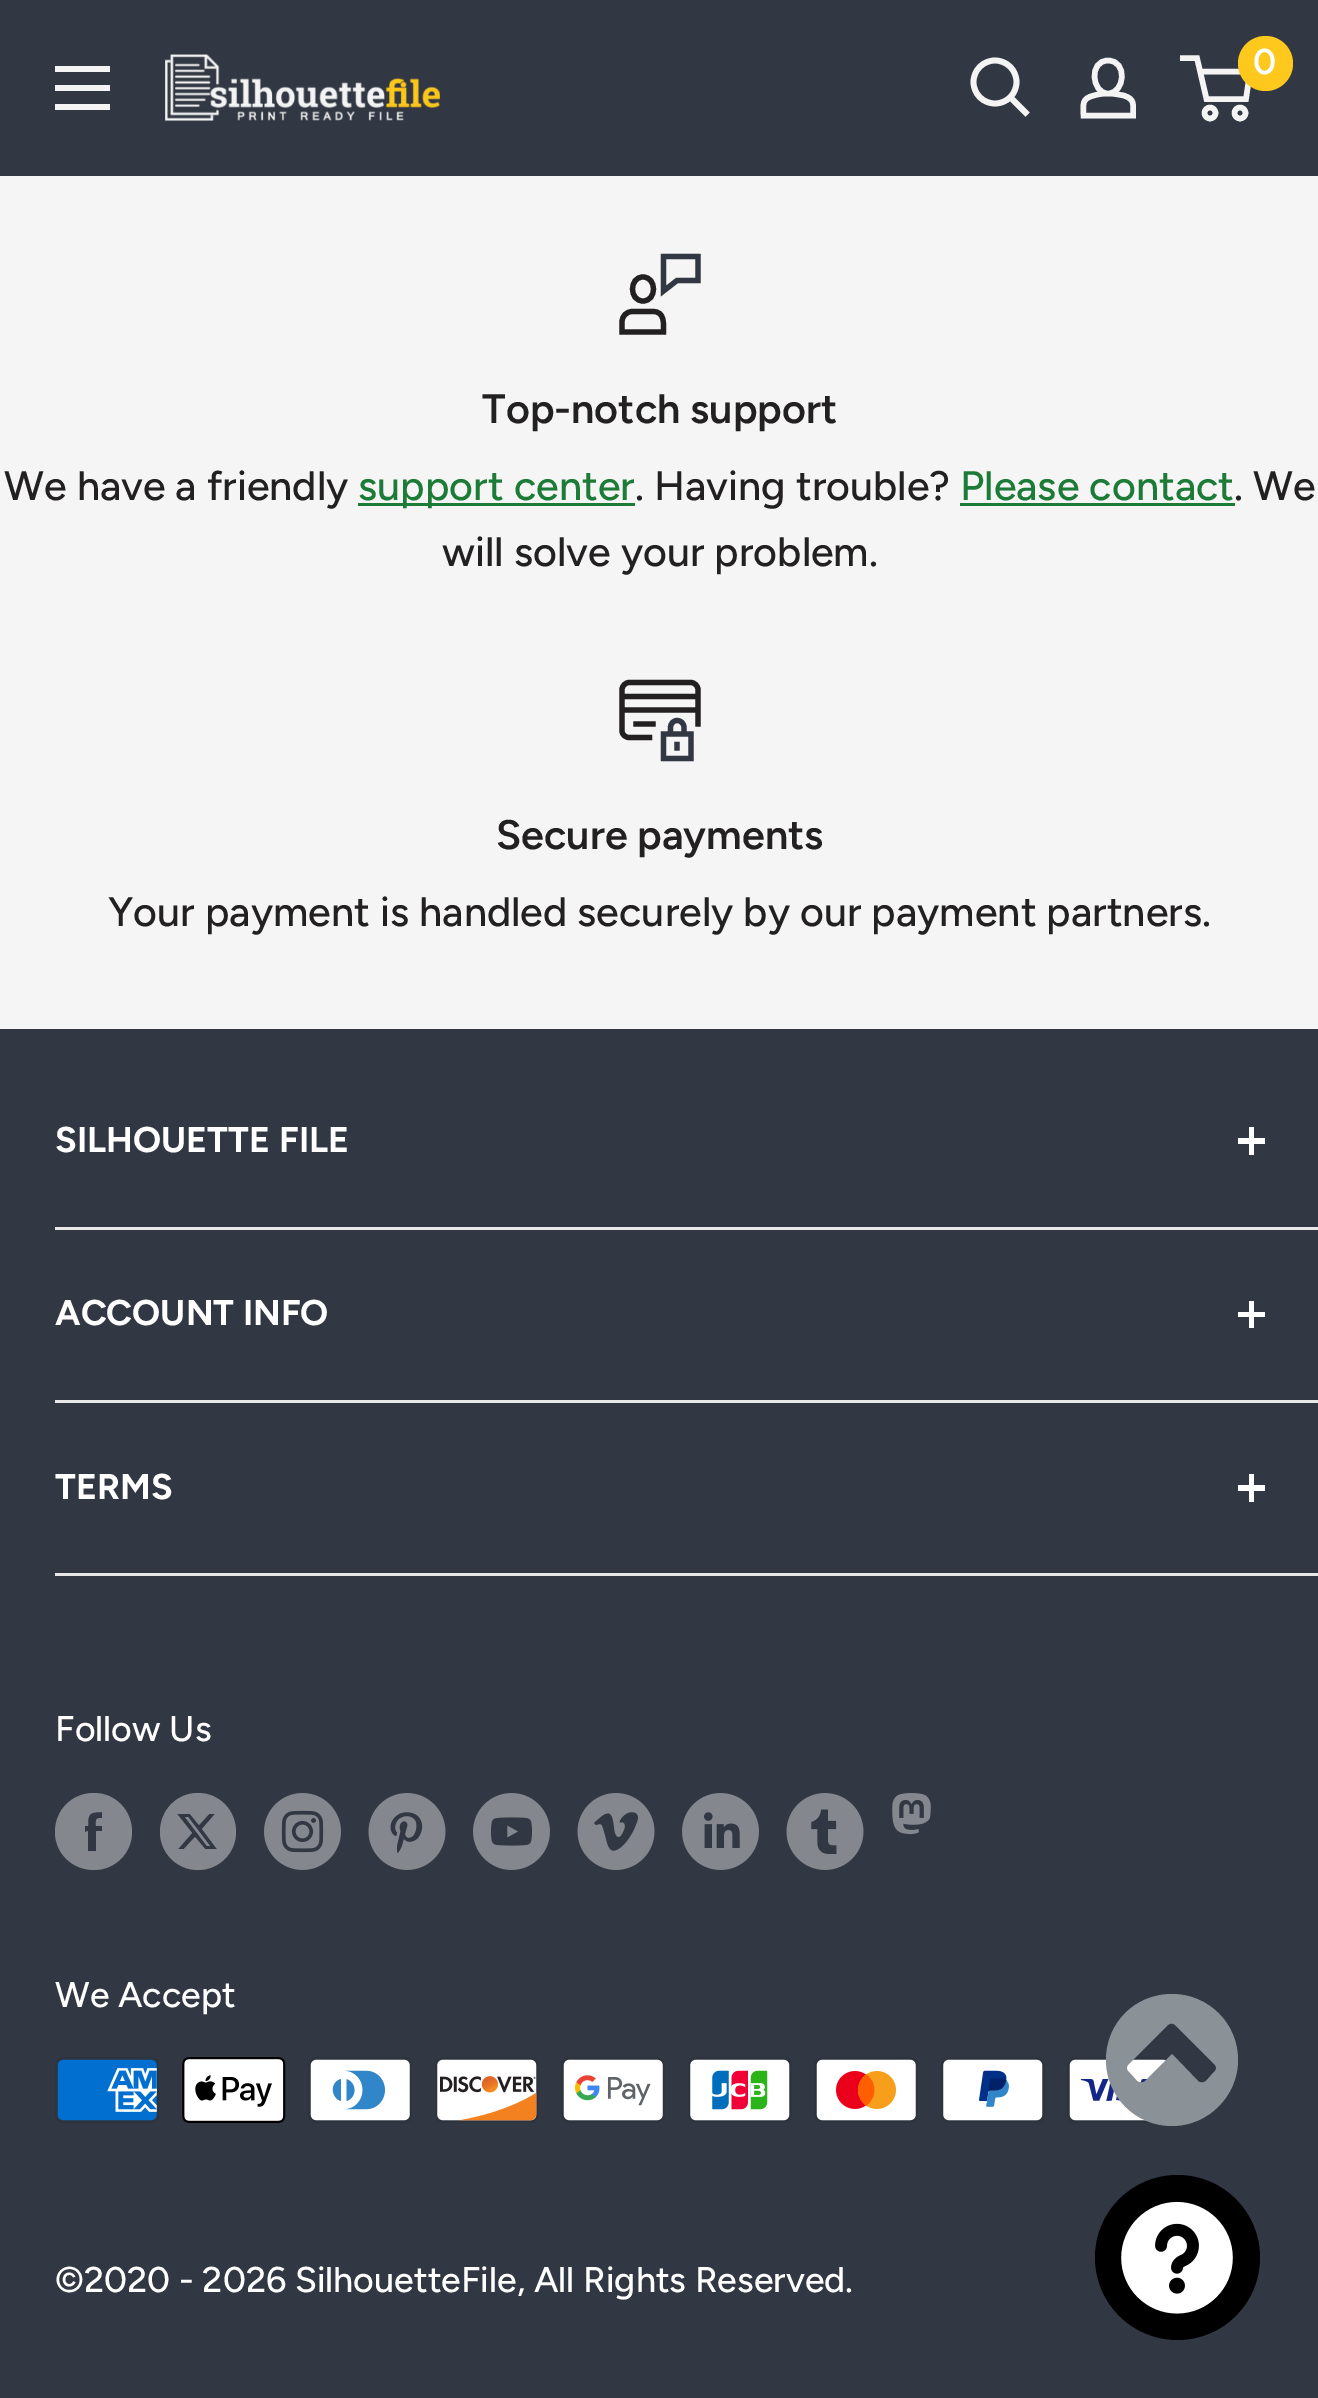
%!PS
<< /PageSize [1318 2398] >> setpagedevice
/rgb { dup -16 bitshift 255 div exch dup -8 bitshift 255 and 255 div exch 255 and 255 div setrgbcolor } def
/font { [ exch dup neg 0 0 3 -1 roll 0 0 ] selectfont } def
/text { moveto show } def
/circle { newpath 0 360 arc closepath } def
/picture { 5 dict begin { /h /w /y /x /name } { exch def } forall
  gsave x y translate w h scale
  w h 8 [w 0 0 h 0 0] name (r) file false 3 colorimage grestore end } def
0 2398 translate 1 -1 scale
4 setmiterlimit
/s1 { /Figtree-SemiBold 36 font 16#FFFFFF rgb } def
/s2 { /Figtree-SemiBold 41.25 font 16#222021 rgb } def
/s3 { /Figtree-Medium 41.25 font 16#222021 rgb } def
/s4 { /Figtree-Medium 41.25 font 16#1C7B36 rgb } def
/s5 { /Figtree-Bold 35.75 font 16#FFFFFF rgb } def
/s6 { /Figtree-Medium 35.75 font 16#FFFFFF rgb } def
16#F5F5F5 rgb
0 0 1318 2398 rectfill
16#323843 rgb
0 0 1318 176 rectfill
16#F4F4F4 rgb
55 104 moveto 110 104 lineto 110 110 lineto 55 110 lineto closepath 55 66 moveto 110 66 lineto 110 72 lineto 55 72 lineto closepath 55 85 moveto 110 85 lineto 110 91 lineto 55 91 lineto closepath eofill
(pic1.raw) 165 54 275 67 picture
5.8 setlinewidth
2 setlinecap
1025.5 112.5 moveto 1011 98 lineto stroke
0 setlinecap
995 82 21.5 circle stroke
5.5 setlinewidth
1108 93.5 moveto 1113.5 93.5 1118.5 94.5 1123.5 95.5 curveto 1135.5 99 1133 105 1133 115.5 curveto 1083.5 115.5 lineto 1083.5 104.5 1081 98.5 1094 95.5 curveto 1098.5 94 1103.5 93.5 1108 93.5 curveto closepath 1108 93.5 moveto 1091.5 93.5 1088.5 60.5 1108 60.5 curveto 1128 60.5 1125 93.5 1108 93.5 curveto closepath stroke
1210 113 5.5 circle stroke
1240 113 5.5 circle stroke
1200 71.5 moveto 1250 71.5 lineto 1246 99 lineto 1206.5 99 lineto 1197 58 lineto 1180 58 lineto stroke
16#FEC91C rgb
1265.5 63.5 27.5 circle fill
s1
(0) 1253 74 text
16#222021 rgb
5.2 setlinewidth
2 setlinecap
653 311.5 moveto 632.5 311.5 lineto 626.5 311.5 622 316 622 322 curveto 622 332 lineto 663.5 332 lineto 663.5 324 665 311.5 653 311.5 curveto closepath 643 301 moveto 629 301 629 277 643 277 curveto 657 277 657 301 643 301 curveto closepath stroke
16#323843 rgb
663.5 256.5 moveto 663.5 291 lineto 677 280.5 lineto 698 280.5 lineto 698 256.5 lineto closepath stroke
s2
(Top-notch support) 482 423 text
s3
(We have a friendly) 4 500 text
16#1C7B36 rgb
358 503 277 3 rectfill
(support center) 358 500 text
s3
(. Having trouble?) 635 500 text
s4
(Please contact) 960 500 text
960 503 275 3 rectfill
s3
(. We) 1234 500 text
(will solve your problem.) 442 566 text
622 696.5 moveto 698 696.5 lineto 622 710 moveto 698 710 lineto 649.5 737.5 moveto 629 737.5 lineto 625.5 737.5 622 734.5 622 731 curveto 622 689.5 lineto 622 686 625.5 682.5 629 682.5 curveto 691 682.5 lineto 694.5 682.5 698 686 698 689.5 curveto 698 724 lineto 636 724 moveto 653 724 lineto stroke
16#323843 rgb
663.5 734 moveto 691 734 lineto 691 758.5 lineto 663.5 758.5 lineto closepath 670.5 734 moveto 670.5 727.5 lineto 670.5 723.5 673.5 720.5 677 720.5 curveto 681 720.5 684 723.5 684 727.5 curveto 684 734 lineto 677 744.5 moveto 677 748 lineto stroke
s2
(Secure payments) 496 849 text
s3
(Your payment is handled securely by our payment partners.) 108 926 text
16#323843 rgb
0 1029 1318 1369 rectfill
16#E8E8E8 rgb
55 1227 1263 3 rectfill
s5
(SILHOUETTE FILE) 55 1152 text
1249 1127 5 28 rectfill
1238 1138 27 6 rectfill
16#E8E8E8 rgb
55 1400 1263 3 rectfill
s5
(ACCOUNT INFO) 55 1325 text
1249 1301 5 27 rectfill
1238 1312 27 5 rectfill
16#E8E8E8 rgb
55 1573 1263 3 rectfill
s5
(TERMS) 55 1499 text
1249 1474 5 28 rectfill
1238 1485 27 6 rectfill
s6
(Follow Us) 55 1741 text
16#84888E rgb
94 1870 moveto 72 1870 55 1853 55 1832 curveto 55 1810 72 1793 94 1793 curveto 115 1793 132 1810 132 1832 curveto 132 1853 115 1870 94 1870 curveto closepath 102 1826 moveto 96 1826 lineto 96 1820 95 1818 102 1818 curveto 102 1812 lineto 89 1812 88 1814 88 1826 curveto 85 1826 lineto 85 1832 lineto 88 1831 lineto 88 1851 lineto 96 1851 lineto 96 1831 lineto 102 1831 lineto closepath eofill
236 1832 moveto 236 1853 219 1870 198 1870 curveto 177 1870 160 1853 160 1832 curveto 160 1810 177 1793 198 1793 curveto 219 1793 236 1810 236 1832 curveto closepath 215 1814 moveto 209 1814 lineto 199 1825 lineto 190 1814 lineto 177 1814 lineto 192 1833 lineto 178 1849 lineto 184 1849 lineto 195 1837 lineto 205 1849 lineto 217 1849 lineto 202 1829 lineto closepath 210 1846 moveto 207 1846 lineto 185 1817 lineto 188 1817 lineto closepath eofill
(pic2.raw) 264 1793 77 77 picture
(pic3.raw) 368 1793 78 77 picture
(pic4.raw) 473 1793 77 77 picture
(pic5.raw) 577 1793 78 77 picture
(pic6.raw) 682 1793 77 77 picture
(pic7.raw) 786 1793 78 77 picture
(pic8.raw) 892 1793 39 42 picture
s6
(We Accept) 55 2007 text
(pic9.raw) 55 2057 104 66 picture
(pic10.raw) 182 2057 104 66 picture
(pic11.raw) 308 2057 104 66 picture
(pic12.raw) 435 2057 104 66 picture
(pic13.raw) 561 2057 104 66 picture
(pic14.raw) 688 2057 104 66 picture
(pic15.raw) 814 2057 104 66 picture
(pic16.raw) 941 2057 104 66 picture
(pic17.raw) 1067 2057 101 66 picture
(©2020 - 2026 SilhouetteFile, All Rights Reserved.) 55 2292 text
16#8A9297 rgb
1206 2081 moveto 1203 2083 1200 2083 1198 2081 curveto 1172 2054 lineto 1145 2081 lineto 1143 2083 1140 2083 1137 2081 curveto 1129 2072 lineto 1126 2070 1126 2066 1129 2064 curveto 1168 2025 lineto 1170 2023 1173 2023 1175 2025 curveto 1214 2064 lineto 1217 2066 1217 2070 1214 2072 curveto closepath 1238 2060 moveto 1238 2023 1208 1994 1172 1994 curveto 1135 1994 1106 2023 1106 2060 curveto 1106 2096 1135 2126 1172 2126 curveto 1208 2126 1238 2096 1238 2060 curveto closepath fill
16#000000 rgb
1177.5 2257.5 82.5 circle fill
(pic18.raw) 1121 2201 112 113 picture
showpage
